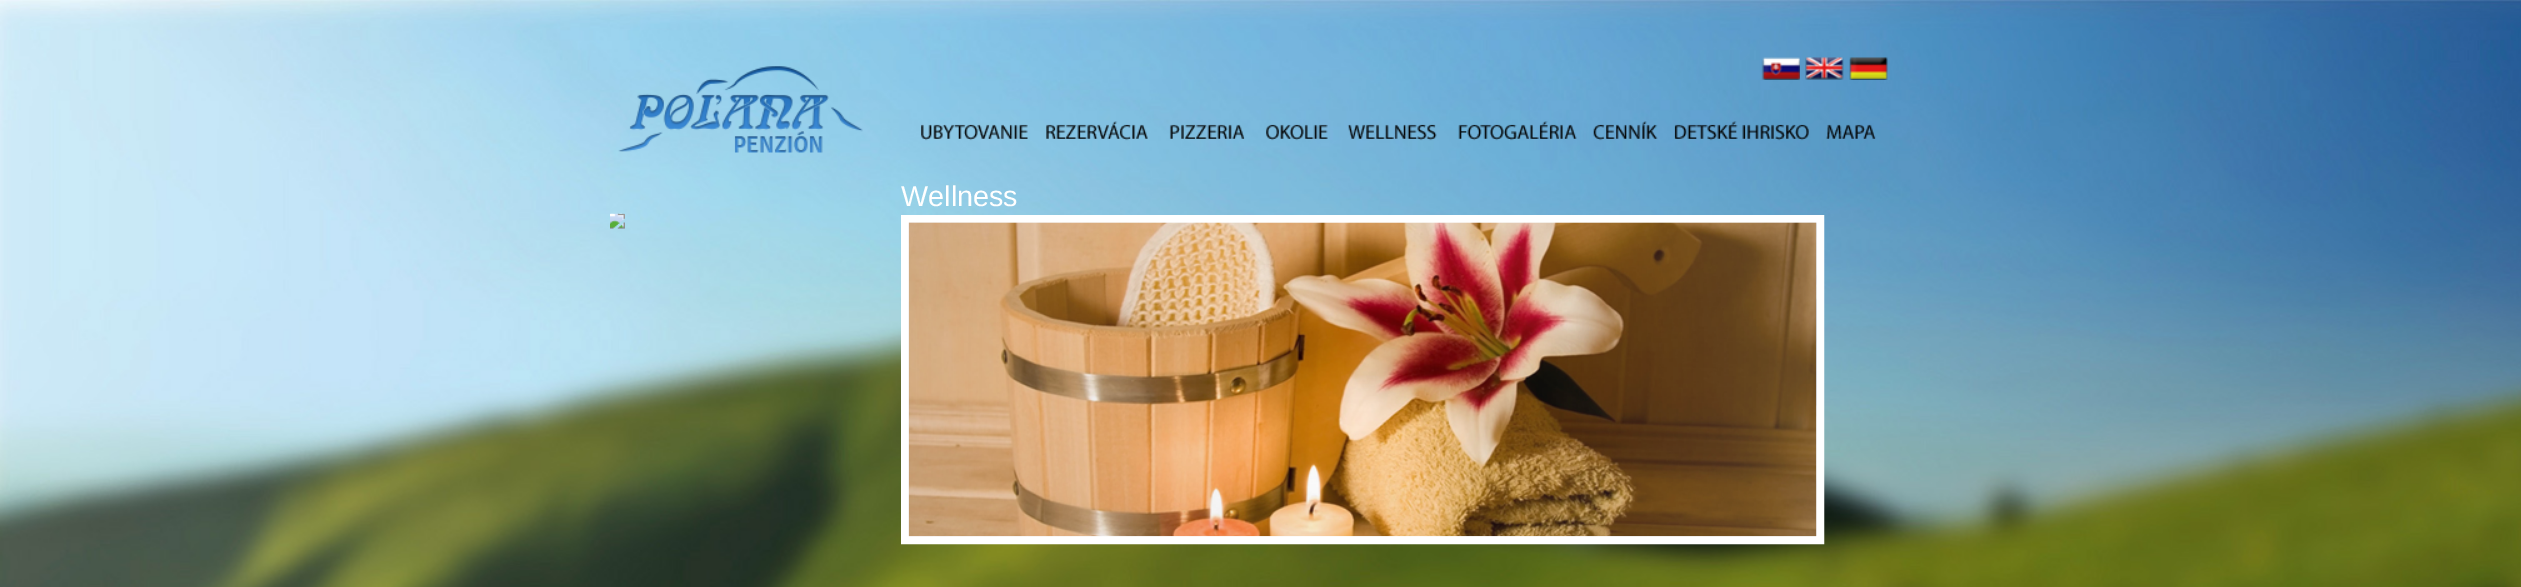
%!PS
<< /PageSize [2521 587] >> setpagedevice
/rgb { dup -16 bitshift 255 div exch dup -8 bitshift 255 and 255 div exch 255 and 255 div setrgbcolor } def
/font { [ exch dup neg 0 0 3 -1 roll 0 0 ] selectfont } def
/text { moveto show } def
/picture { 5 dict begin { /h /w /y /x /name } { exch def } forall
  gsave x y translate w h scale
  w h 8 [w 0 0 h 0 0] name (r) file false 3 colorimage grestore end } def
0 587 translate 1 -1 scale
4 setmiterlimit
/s1 { /LiberationSans-Regular 28.75 font 16#FFFFFF rgb } def
16#FFFFFF rgb
0 0 2521 587 rectfill
(pic1.raw) 0 0 2521 587 picture
(pic2.raw) 618 66 245 87 picture
(pic3.raw) 1761 57 39 23 picture
(pic4.raw) 1805 57 39 23 picture
(pic5.raw) 1849 57 39 23 picture
(pic6.raw) 921 124 107 17 picture
(pic7.raw) 1046 121 102 20 picture
(pic8.raw) 1169 124 76 15 picture
(pic9.raw) 1266 124 62 17 picture
(pic10.raw) 1347 124 90 17 picture
(pic11.raw) 1458 121 119 20 picture
(pic12.raw) 1593 121 65 20 picture
(pic13.raw) 1674 121 135 20 picture
(pic14.raw) 1826 124 50 15 picture
s1
(Wellness) 901 206 text
(pic15.raw) 610 213 15 16 picture
8 setlinewidth
905 219 915 321 rectstroke
(pic16.raw) 908 222 909 315 picture
(pic17.raw) 1816 222 1 314 picture
(pic18.raw) 908 222 909 315 picture
showpage
